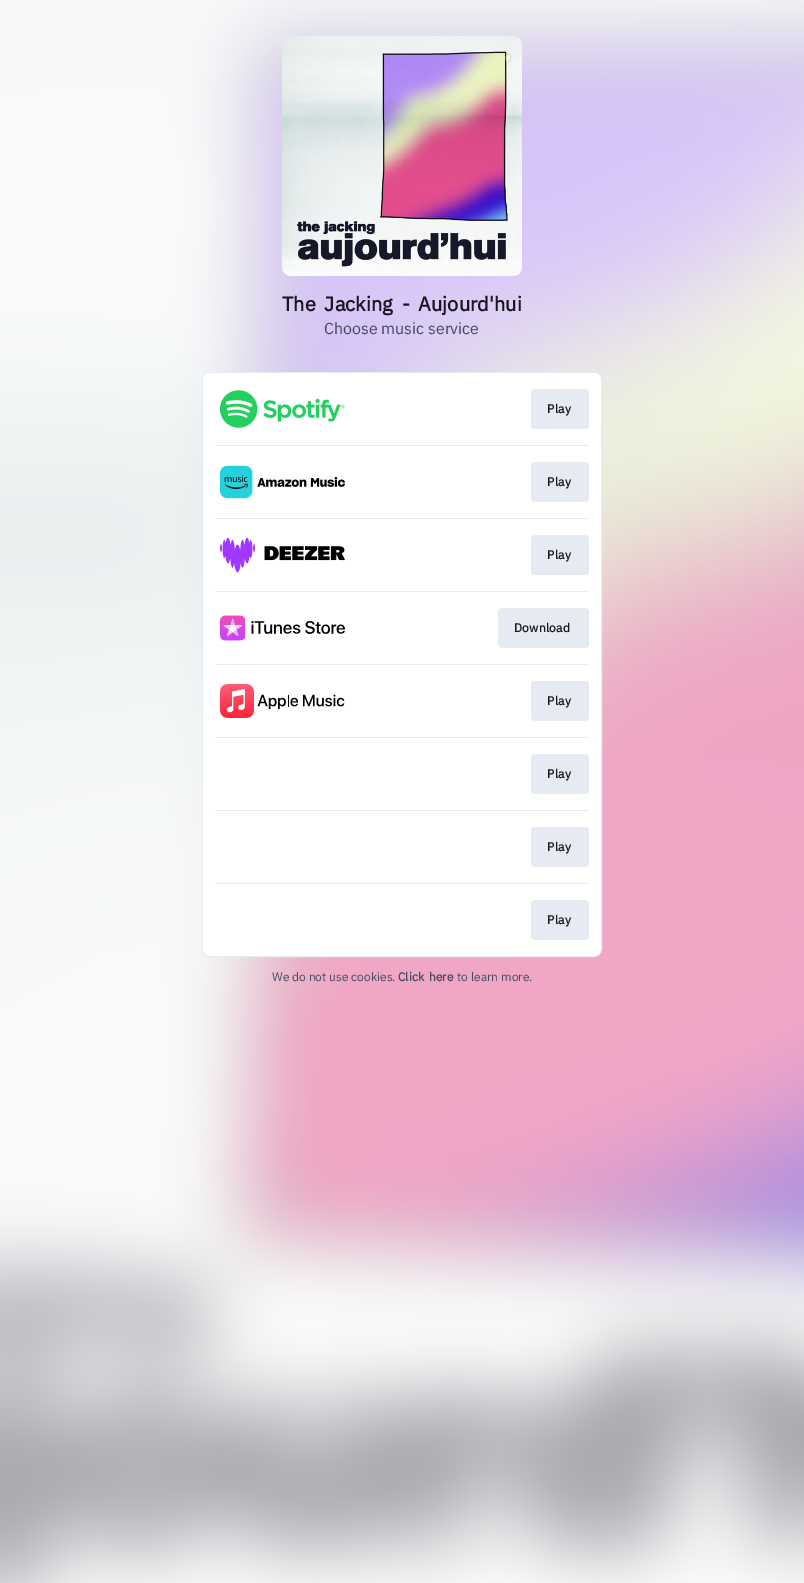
%!PS
<< /PageSize [804 1583] >> setpagedevice
/rgb { dup -16 bitshift 255 div exch dup -8 bitshift 255 and 255 div exch 255 and 255 div setrgbcolor } def
/font { [ exch dup neg 0 0 3 -1 roll 0 0 ] selectfont } def
/text { moveto show } def
/roundrect { 5 dict begin { /r /h /w /y /x } { exch def } forall
  x r add y moveto x w add y 2 copy h add r arct x w add y h add x 1 index r arct
  x y h add x y r arct x y 2 copy exch w add exch r arct closepath end } def
/picture { 5 dict begin { /h /w /y /x /name } { exch def } forall
  gsave x y translate w h scale
  w h 8 [w 0 0 h 0 0] name (r) file false 3 colorimage grestore end } def
0 1583 translate 1 -1 scale
4 setmiterlimit
/s1 { /IBMPlexSans-Regular 12 font 16#DBE1C0 rgb } def
/s2 { /IBMPlexSans-Regular 16 font 16#454B5F rgb } def
/s3 { /IBMPlexSans-Regular 12 font 16#454B5F rgb } def
16#FFFFFF rgb
0 0 804 1583 rectfill
(pic1.raw) 0 0 804 1583 picture
(pic2.raw) 282 36 240 240 picture
s1
(0) 505 62 text
/IBMPlexSans-Bold 20 font
16#181721 rgb
282 311 moveto 4 0 32 (The Jacking - Aujourd'hui) widthshow
s2
(Choose music service) 324 334 text
16#E6EAF2 rgb
202.5 372.5 399 584 7.5 roundrect stroke
16#FFFFFF rgb
203 373 398 583 7 roundrect fill
(pic3.raw) 220 390 125 38 picture
16#E6EAF2 rgb
531 389 58 40 4 roundrect fill
/IBMPlexSans-Bold 12 font
16#181721 rgb
547 413 moveto 0.25 0 (Play) ashow
16#E6EAF2 rgb
215 445 374 1 rectfill
(pic4.raw) 220 465 125 34 picture
531 462 58 40 4 roundrect fill
16#181721 rgb
547 486 moveto 0.25 0 (Play) ashow
16#E6EAF2 rgb
215 518 374 1 rectfill
(pic5.raw) 220 537 125 36 picture
531 535 58 40 4 roundrect fill
16#181721 rgb
547 559 moveto 0.25 0 (Play) ashow
16#E6EAF2 rgb
215 591 374 1 rectfill
(pic6.raw) 220 615 125 26 picture
498 608 91 40 4 roundrect fill
16#181721 rgb
514 632 moveto 0.25 0 (Download) ashow
16#E6EAF2 rgb
215 664 374 1 rectfill
(pic7.raw) 220 684 125 34 picture
531 681 58 40 4 roundrect fill
16#181721 rgb
547 705 moveto 0.25 0 (Play) ashow
16#E6EAF2 rgb
215 737 374 1 rectfill
531 754 58 40 4 roundrect fill
16#181721 rgb
547 778 moveto 0.25 0 (Play) ashow
16#E6EAF2 rgb
215 810 374 1 rectfill
531 827 58 40 4 roundrect fill
16#181721 rgb
547 851 moveto 0.25 0 (Play) ashow
16#E6EAF2 rgb
215 883 374 1 rectfill
531 900 58 40 4 roundrect fill
16#181721 rgb
547 924 moveto 0.25 0 (Play) ashow
s3
(We do not use cookies.) 272 981 text
/IBMPlexSans-Bold 12 font
398 981 moveto 2 0 32 (Click here) widthshow
s3
(to learn more.) 457 981 text
showpage
